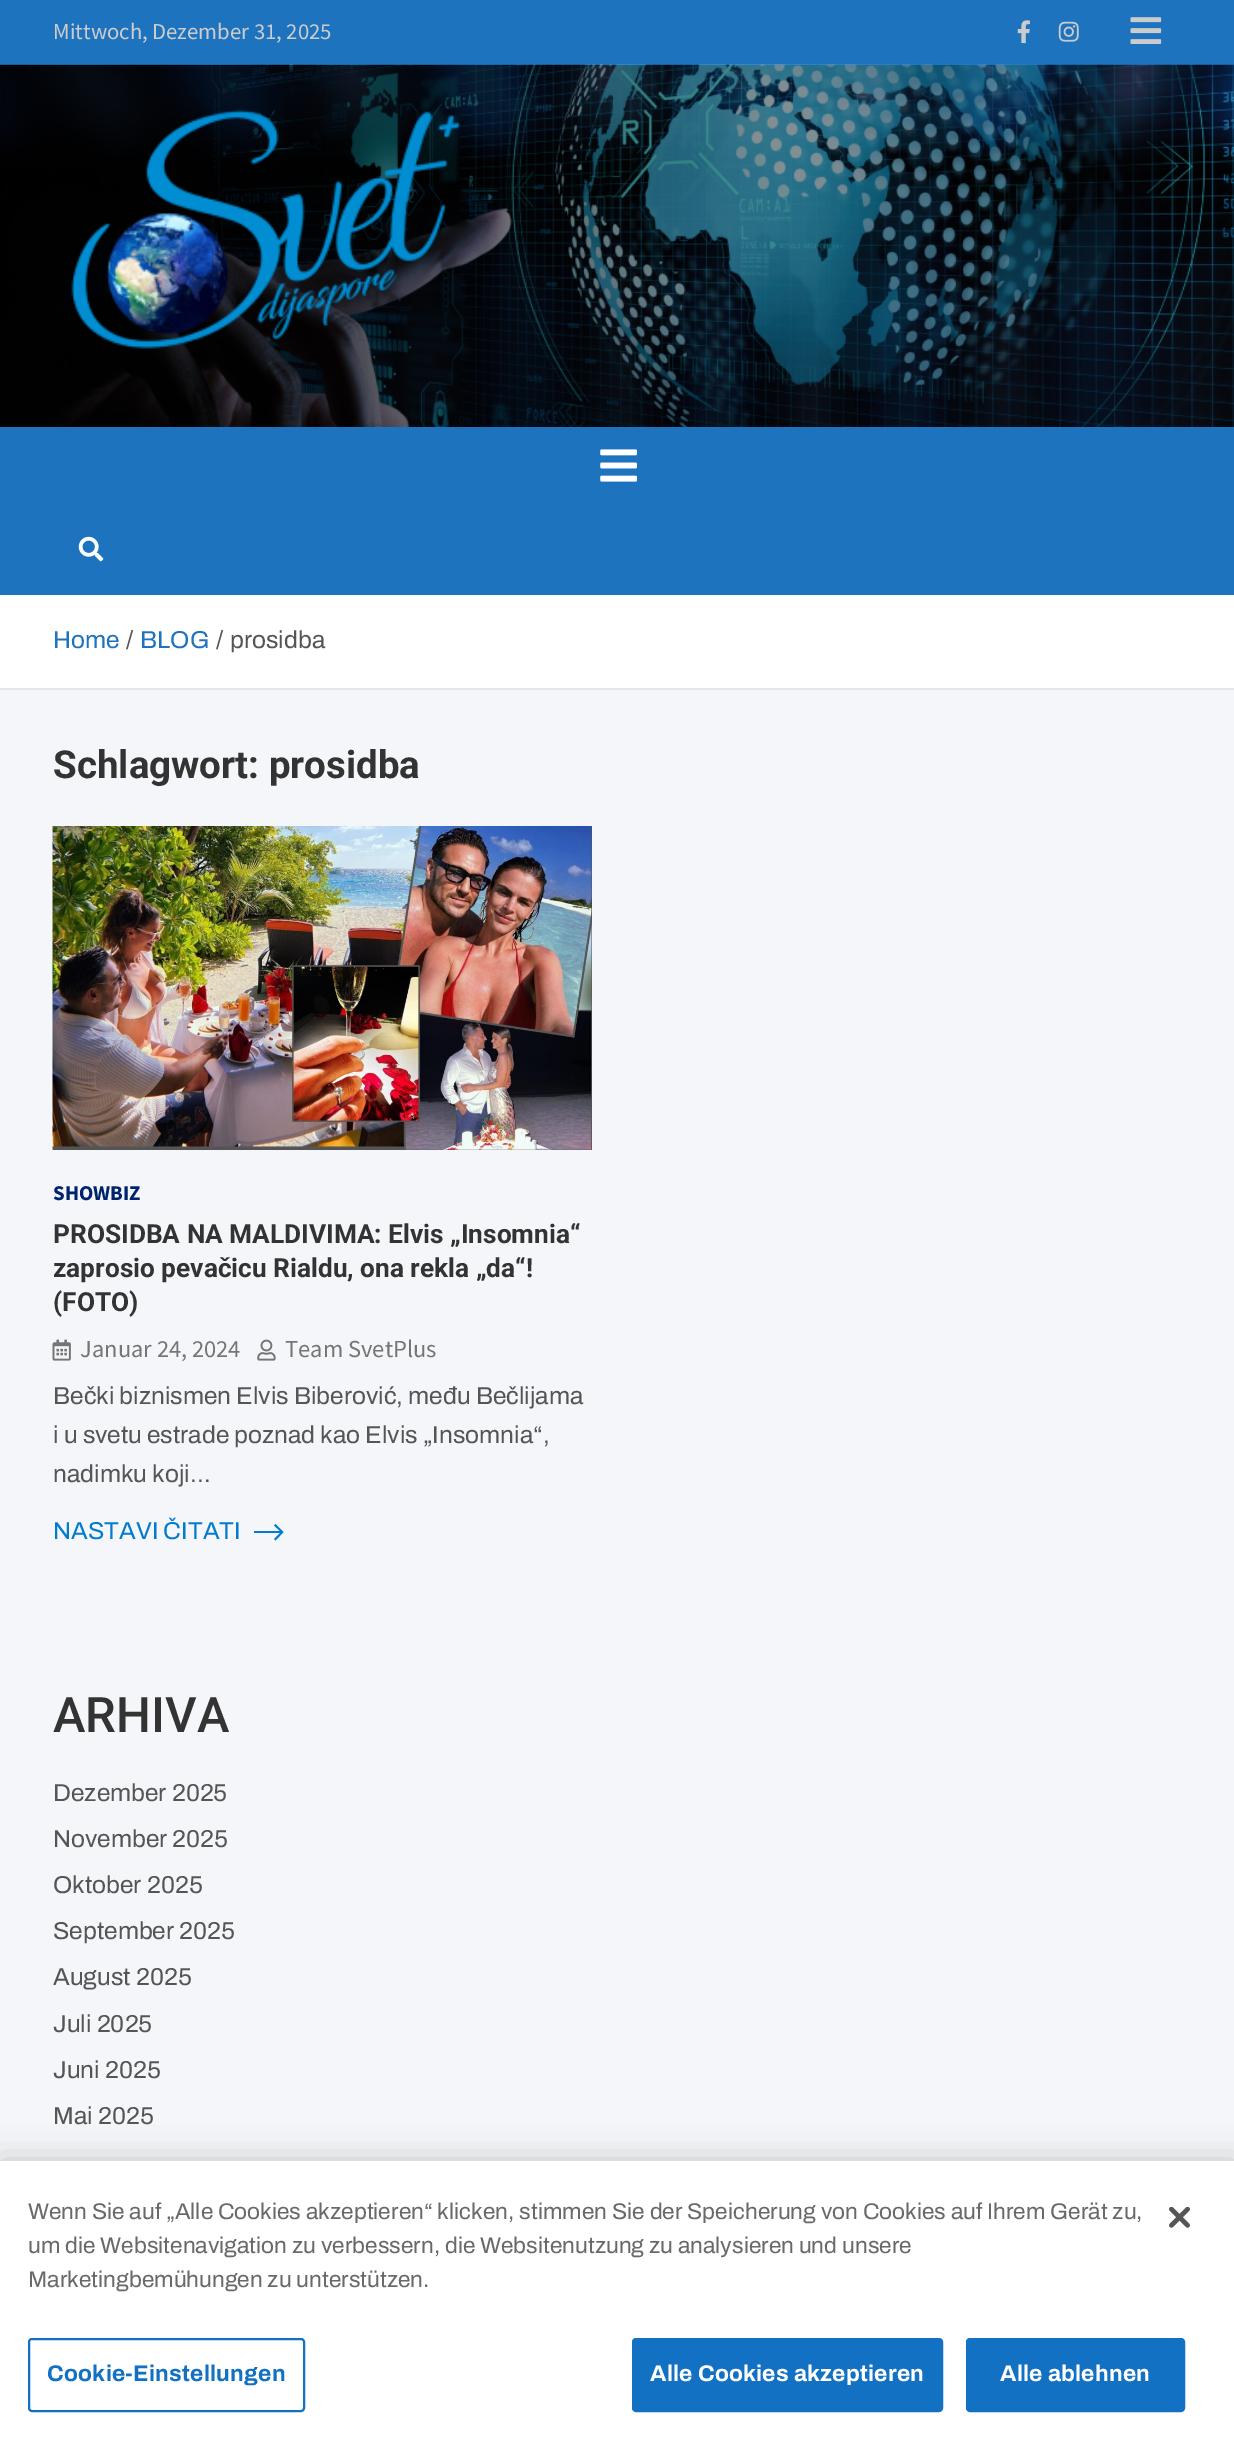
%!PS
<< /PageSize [1234 2444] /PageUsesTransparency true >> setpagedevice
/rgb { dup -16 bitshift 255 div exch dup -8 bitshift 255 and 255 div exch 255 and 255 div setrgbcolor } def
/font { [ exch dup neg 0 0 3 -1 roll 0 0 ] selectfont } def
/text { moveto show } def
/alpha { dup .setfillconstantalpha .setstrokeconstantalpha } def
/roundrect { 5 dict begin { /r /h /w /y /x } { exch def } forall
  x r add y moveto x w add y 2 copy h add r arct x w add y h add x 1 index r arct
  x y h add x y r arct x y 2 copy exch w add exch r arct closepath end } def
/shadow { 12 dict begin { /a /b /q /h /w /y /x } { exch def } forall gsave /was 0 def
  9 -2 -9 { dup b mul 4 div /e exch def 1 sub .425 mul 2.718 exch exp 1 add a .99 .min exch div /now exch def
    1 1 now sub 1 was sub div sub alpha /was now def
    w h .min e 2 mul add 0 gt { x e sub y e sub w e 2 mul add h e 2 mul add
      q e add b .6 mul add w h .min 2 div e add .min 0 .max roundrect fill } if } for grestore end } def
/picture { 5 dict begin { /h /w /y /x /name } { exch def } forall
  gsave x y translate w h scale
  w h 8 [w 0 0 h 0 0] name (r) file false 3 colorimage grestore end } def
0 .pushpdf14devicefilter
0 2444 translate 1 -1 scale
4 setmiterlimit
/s1 { /SourceSansPro-Regular 22.75 font 16#CCCCCC rgb } def
/s2 { /Archivo-Regular 24.5 font 16#1E73BE rgb } def
/s3 { /Archivo-Regular 24.5 font 16#555555 rgb } def
/s4 { /Roboto-Bold 38.5 font 16#333333 rgb } def
/s5 { /SourceSansPro-Bold 21 font 16#00236E rgb } def
/s6 { /Roboto-Bold 26.25 font 16#333333 rgb } def
/s7 { /SourceSansPro-Regular 24.5 font 16#757576 rgb } def
/s8 { /Archivo-Regular 24.5 font 16#007BCE rgb } def
/s9 { /Roboto-Medium 49 font 16#333333 rgb } def
/s10 { /Archivo-Regular 22.75 font 16#696969 rgb } def
16#F4F6F9 rgb
0 0 1234 2444 rectfill
16#1E73BE rgb
0 0 1234 65 rectfill
s1
(Mittwoch, Dezember 31, 2025) 53 39 text
(pic1.raw) 1017 20 13 24 picture
(pic2.raw) 1058 21 21 21 picture
(pic3.raw) 1130 17 32 27 picture
(pic4.raw) 0 64 1234 363 picture
(pic5.raw) 71 110 390 239 picture
16#1E73BE rgb
0 427 1234 168 rectfill
(pic6.raw) 600 449 37 33 picture
(pic7.raw) 78 536 26 26 picture
16#FFFFFF rgb
0 595 1234 93 rectfill
16#E6E6E6 rgb
0 688 1234 2 rectfill
s2
(Home) 53 648 text
s3
(/) 126 648 text
s2
(BLOG) 140 648 text
s3
(/) 216 648 text
(prosidba) 230 648 text
s4
(Schlagwort: prosidba) 53 778 text
16#555555 rgb
53 826 539 324 rectfill
(pic8.raw) 52 826 540 324 picture
s5
(SHOWBIZ) 53 1200 text
s6
(PROSIDBA NA MALDIVIMA: Elvis „Insomnia“) 53 1243 text
(zaprosio pevačicu Rialdu, ona rekla „da“!) 53 1277 text
(\(FOTO\)) 53 1311 text
(pic9.raw) 52 1339 19 22 picture
s7
(Januar 24, 2024) 80 1357 text
(pic10.raw) 257 1339 19 22 picture
(Team SvetPlus) 285 1357 text
s3
(Bečki biznismen Elvis Biberović, među Bečlijama) 53 1404 text
(i u svetu estrade poznad kao Elvis „Insomnia“,) 53 1443 text
(nadimku koji…) 53 1482 text
s8
(NASTAVI ČITATI) 53 1539 text
275.5 1524 moveto 274 1525.5 lineto 280 1531 lineto 254 1531 lineto 254 1533 lineto 280 1533 lineto 274 1539 lineto 275.5 1540.5 lineto 283.5 1532 lineto closepath fill
s9
(ARHIVA) 53 1732 text
s3
(Dezember 2025) 53 1801 text
(November 2025) 53 1847 text
(Oktober 2025) 53 1893 text
(September 2025) 53 1939 text
(August 2025) 53 1985 text
(Juli 2025) 53 2032 text
(Juni 2025) 53 2078 text
(Mai 2025) 53 2124 text
16#000000 rgb
0 2161 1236 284 0 16 0.2 shadow
16#FFFFFF rgb
0 2161 1234 283 rectfill
s10
(Wenn Sie auf „Alle Cookies akzeptieren“ klicken, stimmen Sie der Speicherung von Cookies auf Ihrem Gerät zu,) 28 2219 text
(um die Websitenavigation zu verbessern, die Websitenutzung zu analysieren und unsere) 28 2253 text
(Marketingbemühungen zu unterstützen.) 28 2287 text
16#1371C3 rgb
2 setlinewidth
29 2339 275 72 3 roundrect stroke
/Archivo-Bold 22.75 font
47 2381 moveto 0.25 0 (Cookie-Einstellungen) ashow
633 2339 309 72 3 roundrect gsave fill grestore
stroke
16#FFFFFF rgb
650 2381 moveto 0.25 0 (Alle Cookies akzeptieren) ashow
16#1371C3 rgb
967 2339 217 72 3 roundrect gsave fill grestore
stroke
16#FFFFFF rgb
1000 2381 moveto 0.25 0 (Alle ablehnen) ashow
(pic11.raw) 1169 2207 21 21 picture
.poppdf14devicefilter showpage
